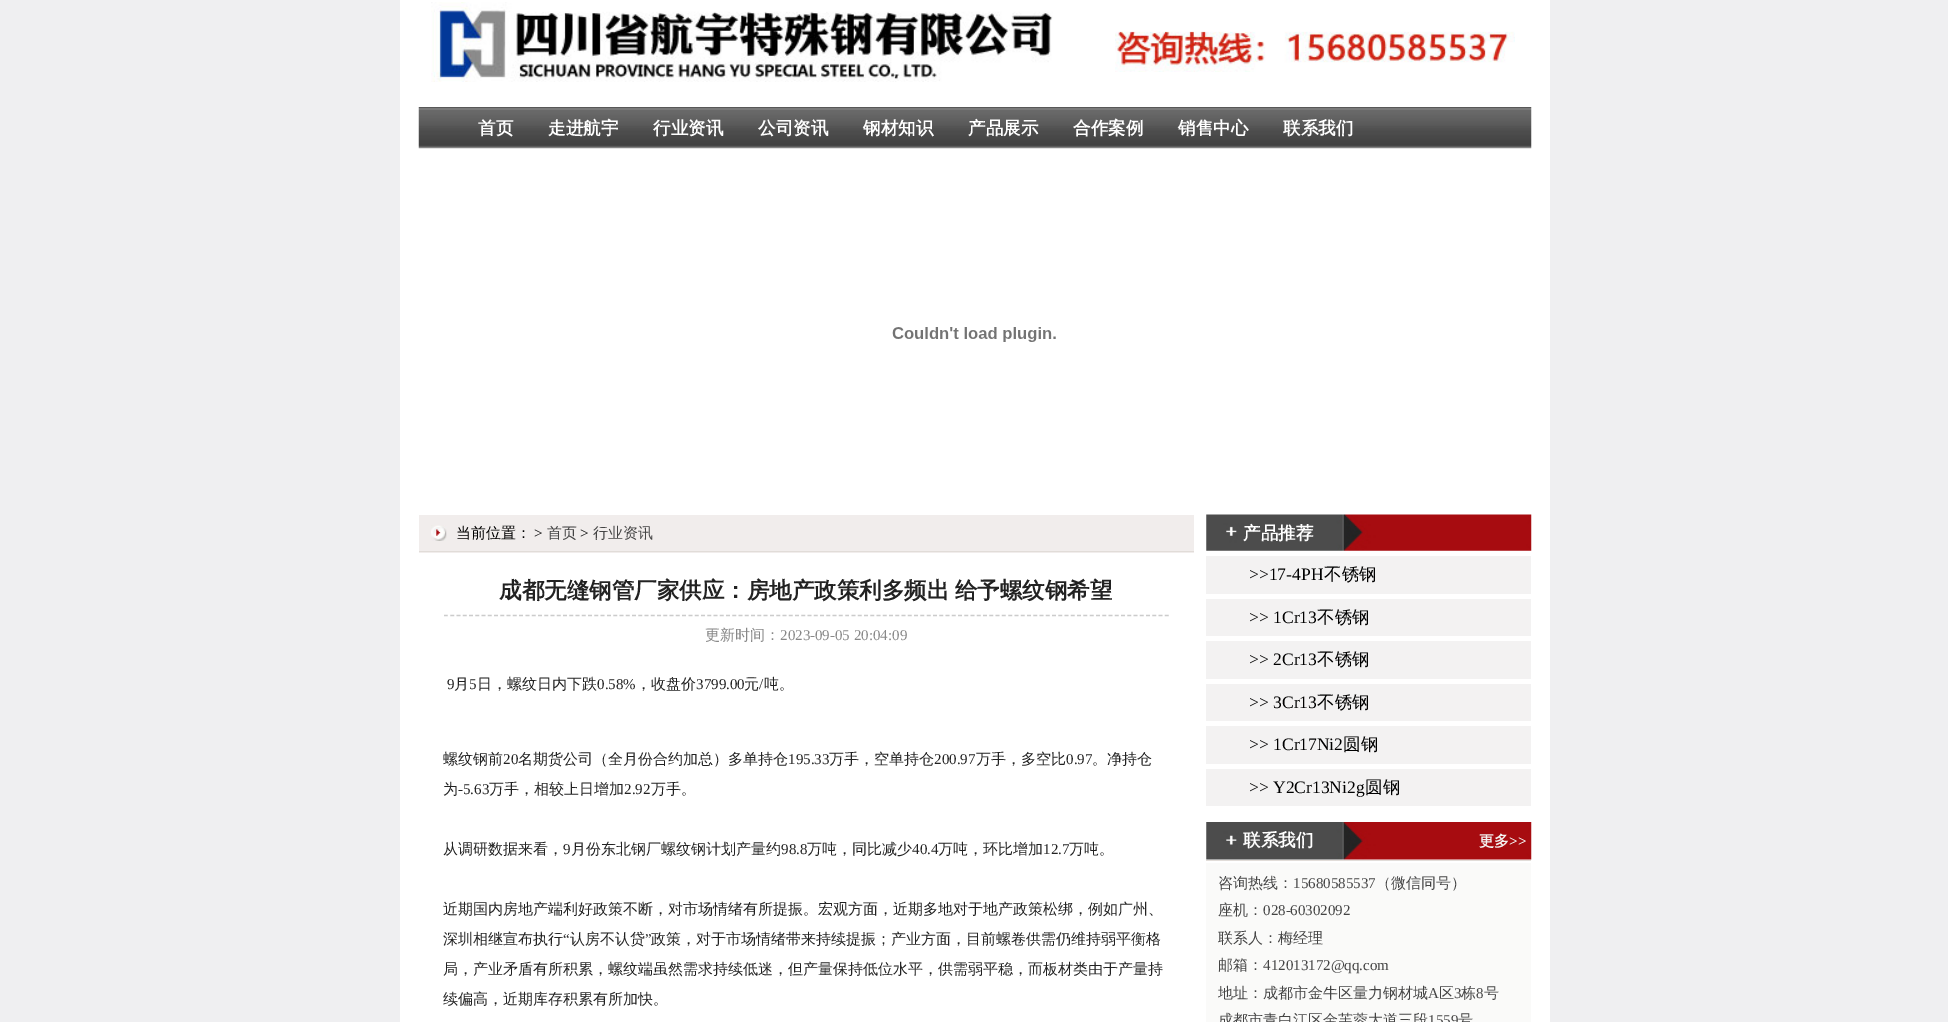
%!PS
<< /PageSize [1948 1022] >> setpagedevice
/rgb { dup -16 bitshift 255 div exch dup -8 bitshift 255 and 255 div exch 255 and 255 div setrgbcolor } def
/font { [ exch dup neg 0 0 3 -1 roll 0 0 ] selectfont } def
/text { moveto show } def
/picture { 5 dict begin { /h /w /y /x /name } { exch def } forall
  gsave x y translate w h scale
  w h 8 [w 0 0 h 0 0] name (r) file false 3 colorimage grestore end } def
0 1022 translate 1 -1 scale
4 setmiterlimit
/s1 { /WenQuanYiZenHei-Bold 17.5 font 16#FFFFFF rgb } def
/s2 { /WenQuanYiZenHei-Medium 15 font 16#000000 rgb } def
/s3 { /LiberationSerif-Regular 15 font 16#000000 rgb } def
/s4 { /WenQuanYiZenHei-Medium 15 font 16#444444 rgb } def
/s5 { /WenQuanYiZenHei-Medium 15 font 16#888888 rgb } def
/s6 { /LiberationSerif-Regular 15 font 16#888888 rgb } def
/s7 { /LiberationSerif-Regular 15 font 16#222222 rgb } def
/s8 { /WenQuanYiZenHei-Medium 15 font 16#222222 rgb } def
/s9 { /LiberationSerif-Regular 17.5 font 16#000000 rgb } def
/s10 { /WenQuanYiZenHei-Medium 17.5 font 16#000000 rgb } def
/s11 { /WenQuanYiZenHei-Bold 15 font 16#F3F2F0 rgb } def
/s12 { /LiberationSerif-Bold 15 font 16#F3F2F0 rgb } def
/s13 { /LiberationSerif-Regular 15 font 16#444444 rgb } def
16#EFEFF1 rgb
0 0 1948 1022 rectfill
16#FFFFFF rgb
400 0 1150 1022 rectfill
(pic1.raw) 431 2 622 80 picture
(pic2.raw) 1115 31 400 41 picture
(pic3.raw) 418 107 1114 42 picture
s1
(首页) 478 134 text
(走进航宇) 548 134 text
(行业资讯) 653 134 text
(公司资讯) 758 134 text
(钢材知识) 863 134 text
(产品展示) 968 134 text
(合作案例) 1073 134 text
(销售中心) 1178 134 text
(联系我们) 1283 134 text
(pic4.raw) 892 327 164 15 picture
16#F1EDEC rgb
419 515 775 38 rectfill
(pic5.raw) 431 525 16 16 picture
16#E1DCD8 rgb
419 551 775 1 rectfill
s2
(当前位置：) 456 538 text
s3
(>) 534 538 text
s4
(首页) 547 538 text
s3
(>) 580 538 text
s4
(行业资讯) 593 538 text
16#CCCCCC rgb
1.2 setlinewidth
[3.75 2.52] 0 setdash
444 615.5 moveto 1169 615.5 lineto stroke
/WenQuanYiZenHei-Bold 22.5 font
16#222222 rgb
499 598 moveto -1 0 32 (成都无缝钢管厂家供应：房地产政策利多频出 给予螺纹钢希望) widthshow
s5
(更新时间：) 705 640 text
s6
(2023-09-05 20:04:09) 780 640 text
s7
(9) 447 689 text
s8
(月) 454 689 text
s7
(5) 469 689 text
s8
(日，螺纹日内下跌) 477 689 text
s7
(0.58%) 597 689 text
s8
(，收盘价) 636 689 text
s7
(3799.00) 696 689 text
s8
(元) 744 689 text
s7
(/) 759 689 text
s8
(吨。) 764 689 text
(螺纹钢前) 443 764 text
s7
(20) 503 764 text
s8
(名期货公司（全月份合约加总）多单持仓) 518 764 text
s7
(195.33) 788 764 text
s8
(万手，空单持仓) 829 764 text
s7
(200.97) 934 764 text
s8
(万手，多空比) 976 764 text
s7
(0.97) 1066 764 text
s8
(。净持仓) 1092 764 text
(为) 443 794 text
s7
(-5.63) 458 794 text
s8
(万手，相较上日增加) 489 794 text
s7
(2.92) 624 794 text
s8
(万手。) 651 794 text
(从调研数据来看，) 443 854 text
s7
(9) 563 854 text
s8
(月份东北钢厂螺纹钢计划产量约) 571 854 text
s7
(98.8) 781 854 text
s8
(万吨，同比减少) 807 854 text
s7
(40.4) 912 854 text
s8
(万吨，环比增加) 938 854 text
s7
(12.7) 1043 854 text
s8
(万吨。) 1069 854 text
(近期国内房地产端利好政策不断，对市场情绪有所提振。宏观方面，近期多地对于地产政策松绑，例如广州、) 443 914 text
(深圳相继宣布执行) 443 944 text
s7
(“) 563 944 text
s8
(认房不认贷) 570 944 text
s7
(”) 645 944 text
s8
(政策，对于市场情绪带来持续提振；产业方面，目前螺卷供需仍维持弱平衡格) 651 944 text
(局，产业矛盾有所积累，螺纹端虽然需求持续低迷，但产量保持低位水平，供需弱平稳，而板材类由于产量持) 443 974 text
(续偏高，近期库存积累有所加快。) 443 1004 text
(pic6.raw) 1206 514 326 37 picture
s1
(产品推荐) 1243 539 text
16#F3F2F2 rgb
1206 556 325 38 rectfill
s9
(>>17-4PH) 1249 580 text
s10
(不锈钢) 1324 580 text
16#F3F2F2 rgb
1206 599 325 37 rectfill
s9
(>> 1Cr13) 1249 623 text
s10
(不锈钢) 1317 623 text
16#F3F2F2 rgb
1206 641 325 38 rectfill
s9
(>> 2Cr13) 1249 665 text
s10
(不锈钢) 1317 665 text
16#F3F2F2 rgb
1206 684 325 37 rectfill
s9
(>> 3Cr13) 1249 708 text
s10
(不锈钢) 1317 708 text
16#F3F2F2 rgb
1206 726 325 38 rectfill
s9
(>> 1Cr17Ni2) 1249 750 text
s10
(圆钢) 1343 750 text
16#F3F2F2 rgb
1206 769 325 37 rectfill
s9
(>> Y2Cr13Ni2g) 1249 793 text
s10
(圆钢) 1365 793 text
(pic7.raw) 1206 822 326 38 picture
16#E1DCD8 rgb
1206 860 325 1 rectfill
s1
(联系我们) 1243 846 text
s11
(更多) 1479 846 text
s12
(>>) 1509 846 text
16#FAFAF9 rgb
1206 863 325 159 rectfill
s4
(咨询热线：) 1218 888 text
s13
(15680585537) 1293 888 text
s4
(（微信同号）) 1376 888 text
(座机：) 1218 915 text
s13
(028-60302092) 1263 915 text
s4
(联系人：梅经理) 1218 943 text
(邮箱：) 1218 970 text
s13
(412013172@qq.com) 1263 970 text
s4
(地址：成都市金牛区量力钢材城) 1218 998 text
s13
(A) 1428 998 text
s4
(区) 1439 998 text
s13
(3) 1454 998 text
s4
(栋) 1461 998 text
s13
(8) 1476 998 text
s4
(号) 1484 998 text
(成都市青白江区金芙蓉大道三段) 1218 1025 text
s13
(1559) 1428 1025 text
s4
(号) 1458 1025 text
showpage
